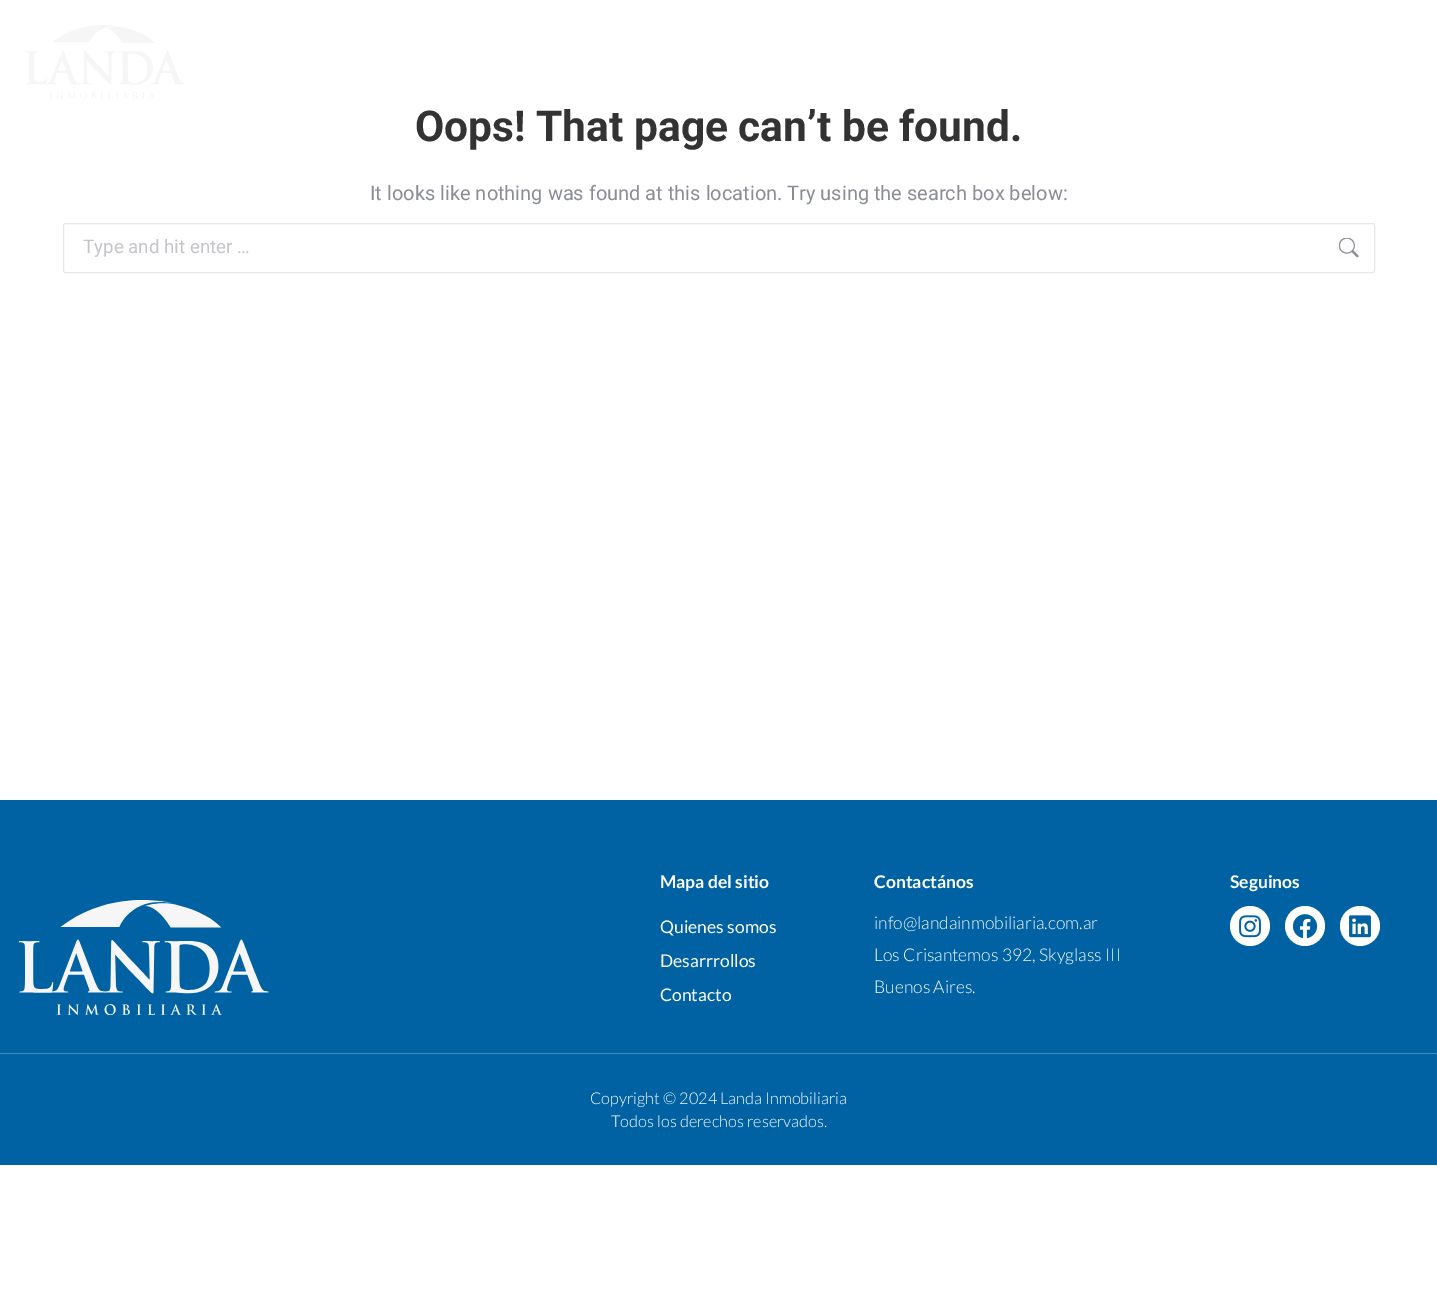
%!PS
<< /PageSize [1437 1294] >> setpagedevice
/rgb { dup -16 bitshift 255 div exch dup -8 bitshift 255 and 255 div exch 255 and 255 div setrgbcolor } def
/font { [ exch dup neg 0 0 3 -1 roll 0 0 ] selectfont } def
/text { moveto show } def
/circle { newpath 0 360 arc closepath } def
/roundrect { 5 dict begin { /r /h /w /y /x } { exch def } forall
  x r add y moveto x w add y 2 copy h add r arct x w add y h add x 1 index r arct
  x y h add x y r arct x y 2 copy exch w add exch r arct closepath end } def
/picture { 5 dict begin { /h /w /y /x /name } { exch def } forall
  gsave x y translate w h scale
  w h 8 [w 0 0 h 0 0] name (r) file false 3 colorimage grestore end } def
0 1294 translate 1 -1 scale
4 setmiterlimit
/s1 { /Roboto-Bold 42.5 font 16#333333 rgb } def
/s2 { /Roboto-Regular 20 font 16#8B8D94 rgb } def
/s3 { /Roboto-Regular 18.75 font 16#C4C5C9 rgb } def
/s4 { /Lato-Bold 17.5 font 16#FFFFFF rgb } def
/s5 { /Lato-Regular 17.5 font 16#FFFFFF rgb } def
/s6 { /Lato-Light 17.5 font 16#FFFFFF rgb } def
/s7 { /Lato-Light 16.25 font 16#FFFFFF rgb } def
16#FFFFFF rgb
0 0 1437 1294 rectfill
(pic1.raw) 25 25 159 74 picture
s1
(Oops! That page can’t be found.) 415 141 text
s2
(It looks like nothing was found at this location. Try using the search box below:) 370 200 text
16#E7E7E7 rgb
63.5 223.5 1311 49 2 roundrect stroke
s3
(Type and hit enter …) 83 253 text
(pic2.raw) 1339 238 20 20 picture
16#0061A3 rgb
0 800 1437 253 rectfill
s4
(Mapa del sitio) 660 888 text
s5
(Quienes somos) 660 933 text
(Desarrrollos) 660 967 text
(Contacto) 660 1001 text
s4
(Contactános) 874 888 text
s6
(info@landainmobiliaria.com.ar) 874 929 text
(Los Crisantemos 392, Skyglass III) 874 961 text
(Buenos Aires.) 874 993 text
s4
(Seguinos) 1230 888 text
1250 926 20 circle fill
(pic3.raw) 1239 915 22 23 picture
1305 926 20 circle fill
(pic4.raw) 1293 914 25 25 picture
1360 926 20 circle fill
(pic5.raw) 1349 915 22 23 picture
(pic6.raw) 19 900 250 115 picture
16#0061A3 rgb
0 1054 1437 111 rectfill
16#478DBD rgb
0 1053 1437 1 rectfill
s7
(Copyright © 2024 Landa Inmobiliaria) 590 1104 text
(Todos los derechos reservados.) 611 1127 text
showpage
